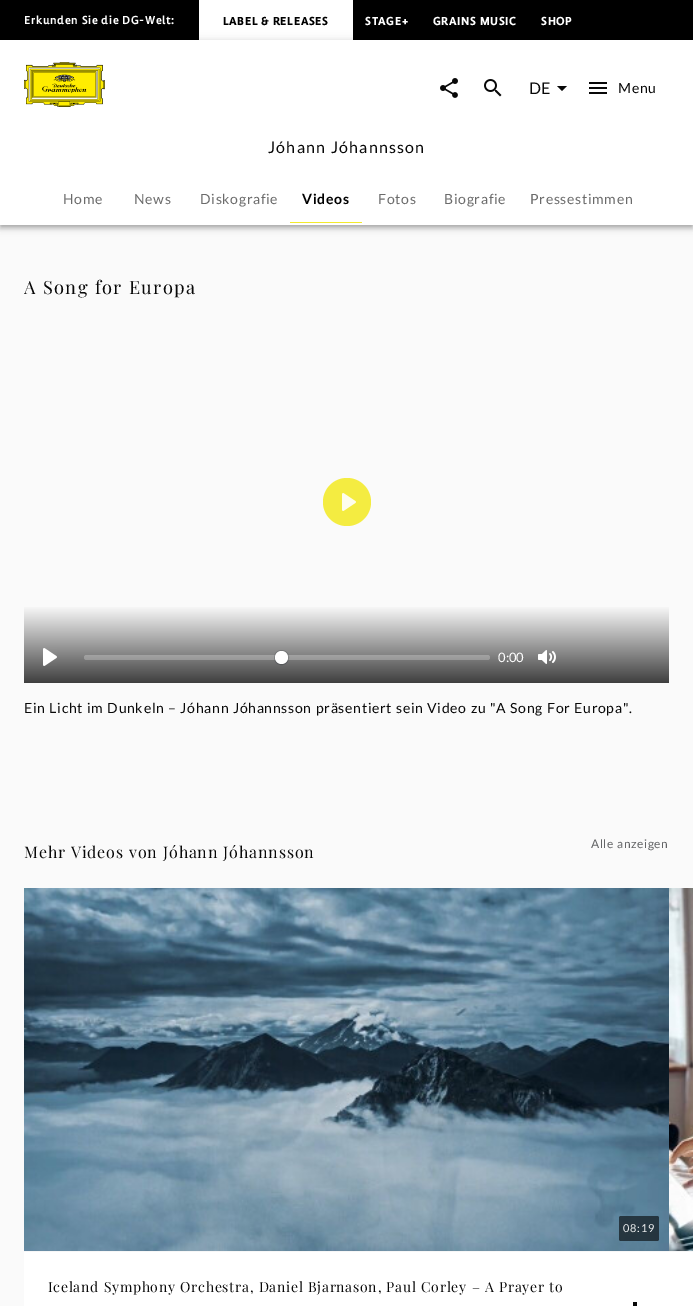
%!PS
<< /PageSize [693 1306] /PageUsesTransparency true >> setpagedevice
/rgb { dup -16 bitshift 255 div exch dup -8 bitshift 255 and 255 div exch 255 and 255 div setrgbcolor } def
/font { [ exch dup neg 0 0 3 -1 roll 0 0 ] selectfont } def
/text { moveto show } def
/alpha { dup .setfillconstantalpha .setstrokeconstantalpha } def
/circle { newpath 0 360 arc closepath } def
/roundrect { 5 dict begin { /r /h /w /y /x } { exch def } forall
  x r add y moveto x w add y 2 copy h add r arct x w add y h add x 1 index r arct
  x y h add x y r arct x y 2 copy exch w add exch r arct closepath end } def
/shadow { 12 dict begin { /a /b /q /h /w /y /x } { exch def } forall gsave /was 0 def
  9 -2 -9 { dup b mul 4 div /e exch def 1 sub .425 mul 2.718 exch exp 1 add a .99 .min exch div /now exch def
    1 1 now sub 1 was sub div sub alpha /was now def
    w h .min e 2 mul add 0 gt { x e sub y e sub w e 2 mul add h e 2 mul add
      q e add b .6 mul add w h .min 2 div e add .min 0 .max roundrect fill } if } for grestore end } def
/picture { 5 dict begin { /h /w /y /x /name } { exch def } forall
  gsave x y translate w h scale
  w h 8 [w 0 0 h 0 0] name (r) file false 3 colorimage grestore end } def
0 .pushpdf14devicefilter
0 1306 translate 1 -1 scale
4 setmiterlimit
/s1 { /Lato-Regular 16 font 16#080808 rgb } def
/s2 { /Lato-Regular 13 font 16#FFFFFF rgb } def
16#FAFAFA rgb
0 0 693 1306 rectfill
16#000000 rgb
0 0 693 40 rectfill
/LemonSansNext-Medium 12 font
16#FFFFFF rgb
24 24 moveto 0.6 0 (Erkunden Sie die DG-Welt:) ashow
199 0 154 40 rectfill
/LemonSansNext-Bold 12 font
16#000000 rgb
223 25 moveto 0.6 0 (LABEL & RELEASES) ashow
16#FFFFFF rgb
365 25 moveto 0.6 0 (STAGE+) ashow
433 25 moveto 0.6 0 (GRAINS MUSIC) ashow
541 25 moveto 0.6 0 (SHOP) ashow
16#000000 rgb
0 41 693 185 0 5 0.12 shadow
0 44 693 185 0 2.5 0.14 shadow
1 43 691 183 0 2 0.2 shadow
16#FFFFFF rgb
0 40 693 185 rectfill
(pic1.raw) 24 62 81 45 picture
(pic2.raw) 440 78 18 20 picture
(pic3.raw) 484 79 18 18 picture
s1
(DE) 529 94 text
557 86 moveto 562 91 lineto 567 86 lineto closepath fill
(pic4.raw) 589 82 18 12 picture
/Lato-Regular 14 font
618 93 moveto 0.7 0 (Menu) ashow
/Lato-Regular 16 font
268 153 moveto 1.25 0 (Jóhann Jóhannsson) ashow
/Lato-Regular 14 font
16#6B6B6B rgb
63 204 moveto 0.7 0 (Home) ashow
134 204 moveto 0.7 0 (News) ashow
200 204 moveto 0.7 0 (Diskografie) ashow
/Lato-Bold 14 font
16#000000 rgb
302 204 moveto 0.7 0 (Videos) ashow
16#F3EA2C rgb
290 222 72 1 rectfill
/Lato-Regular 14 font
16#6B6B6B rgb
378 204 moveto 0.7 0 (Fotos) ashow
444 204 moveto 0.7 0 (Biografie) ashow
530 204 moveto 0.7 0 (Pressestimmen) ashow
/PlayfairDisplay-Regular 18.25 font
16#080808 rgb
24 294 moveto 0.5 0 32 1.25 0 (A Song for Europa) awidthshow
16#F4EC41 rgb
347 502 24 circle fill
(pic5.raw) 342 493 14 18 picture
gsave 24 607 moveto 669 607 lineto 669 683 lineto 24 683 lineto closepath clip newpath
<< /ShadingType 2 /ColorSpace /DeviceRGB /Coords [347 606 347 683] /Extend [true true] /Function << /FunctionType 2 /Domain [0 1] /C0 [0.98 0.98 0.98] /C1 [0.247 0.247 0.247] /N 1 >> >> shfill grestore
(pic6.raw) 43 648 14 18 picture
0.25 alpha
16#FFFFFF rgb
84 655 406 5 2.5 roundrect fill
0.2 alpha
16#23282F rgb
281.5 657.5 7 circle stroke
1 alpha
275 652 13 13 6.5 0.5 0.15 shadow
16#FFFFFF rgb
281.5 657.5 6.5 circle fill
s2
(0:00) 498 662 text
(pic7.raw) 538 650 18 14 picture
/Lato-Regular 14 font
16#080808 rgb
24 713 moveto 0.4 0 32 0.7 0 (Ein Licht im Dunkeln – Jóhann Jóhannsson präsentiert sein Video zu "A Song For Europa".) awidthshow
/PlayfairDisplay-Regular 16 font
24 858 moveto 0.5 0 32 0.8 0 (Mehr Videos von Jóhann Jóhannsson) awidthshow
/Lato-Regular 12 font
16#636466 rgb
591 848 moveto 0.6 0 (Alle anzeigen) ashow
(pic8.raw) 669 888 24 363 picture
16#FFFFFF rgb
24 1252 669 54 rectfill
(pic9.raw) 24 888 645 363 picture
0.59 alpha
16#000000 rgb
619 1216 40 25 2 roundrect fill
/Lato-Regular 11 font
1 alpha
16#E9EBEC rgb
623 1232 moveto 0.8 0 (08:19) ashow
16#F7F7F7 rgb
24 1251 669 1 rectfill
/PlayfairDisplay-Regular 14 font
16#080808 rgb
48 1292 moveto 0.4 0 32 0.7 0 (Iceland Symphony Orchestra, Daniel Bjarnason, Paul Corley – A Prayer to) awidthshow
633 1302 4 4 rectfill
.poppdf14devicefilter showpage
